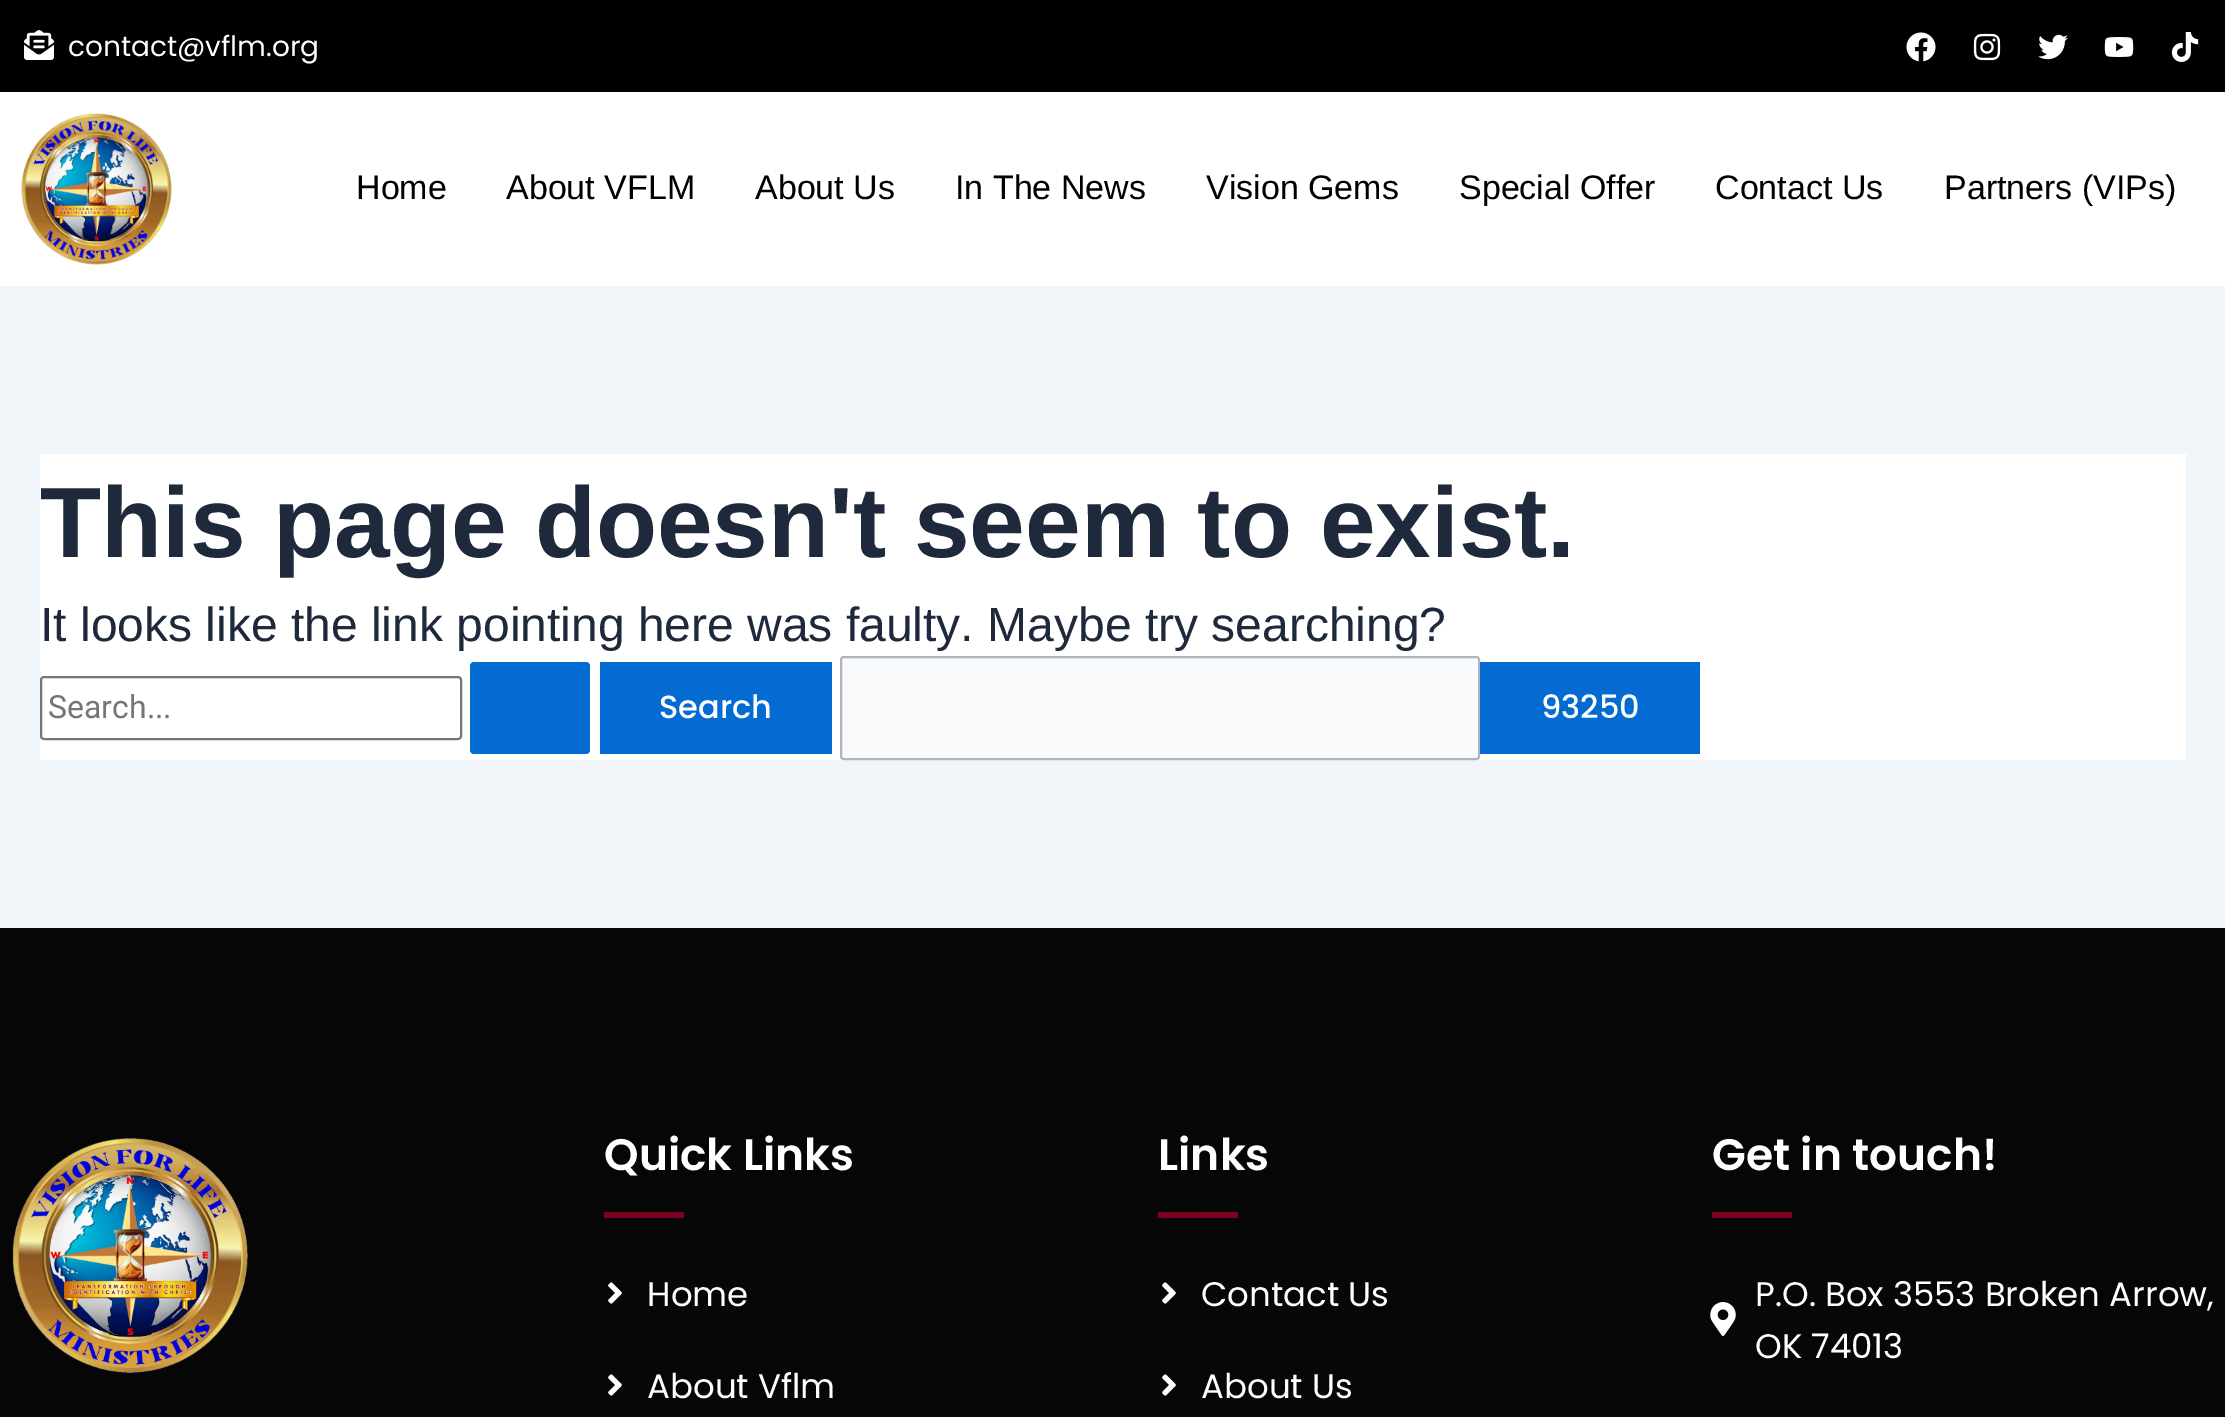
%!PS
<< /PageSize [2225 1417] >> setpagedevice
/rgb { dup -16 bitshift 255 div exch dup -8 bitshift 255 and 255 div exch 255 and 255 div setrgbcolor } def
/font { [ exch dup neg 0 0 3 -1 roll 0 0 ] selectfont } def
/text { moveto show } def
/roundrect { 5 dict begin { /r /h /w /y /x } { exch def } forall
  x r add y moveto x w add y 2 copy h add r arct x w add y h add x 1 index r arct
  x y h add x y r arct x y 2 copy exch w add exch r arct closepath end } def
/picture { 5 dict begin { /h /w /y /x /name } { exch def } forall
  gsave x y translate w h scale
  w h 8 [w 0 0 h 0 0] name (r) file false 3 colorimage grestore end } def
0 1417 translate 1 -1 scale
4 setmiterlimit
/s1 { /Poppins-Regular 28 font 16#FFFFFF rgb } def
/s2 { /LiberationSans-Regular 34 font 16#000000 rgb } def
/s3 { /LiberationSans-Bold 100 font 16#1E293B rgb } def
/s4 { /LiberationSans-Regular 48 font 16#1E293B rgb } def
/s5 { /Roboto-Regular 32 font 16#757575 rgb } def
/s6 { /Poppins-Medium 32 font 16#FFFFFF rgb } def
/s7 { /Poppins-SemiBold 44 font 16#FFFFFF rgb } def
/s8 { /Poppins-Regular 34 font 16#FFFFFF rgb } def
16#F0F5FA rgb
0 0 2225 1417 rectfill
16#000000 rgb
0 0 2225 92 rectfill
(pic1.raw) 24 30 30 30 picture
s1
(contact@vflm.org) 68 56 text
(pic2.raw) 1906 32 30 30 picture
(pic3.raw) 1973 33 28 28 picture
(pic4.raw) 2038 34 30 26 picture
(pic5.raw) 2104 37 30 20 picture
(pic6.raw) 2171 32 28 30 picture
0 92 2225 194 rectfill
(pic7.raw) 21 113 151 152 picture
s2
(Home) 356 199 text
(About VFLM) 506 199 text
(About Us) 755 199 text
(In The News) 955 199 text
(Vision Gems) 1206 199 text
(Special Offer) 1459 199 text
(Contact Us) 1715 199 text
(Partners \(VIPs\)) 1944 199 text
16#FFFFFF rgb
40 454 2146 306 rectfill
s3
(This page doesn't seem to exist.) 40 557 text
s4
(It looks like the link pointing here was faulty. Maybe try searching?) 40 641 text
16#767676 rgb
2 setlinewidth
41 677 420 62 3 roundrect stroke
s5
(Search...) 48 718 text
16#046BD2 rgb
470 662 120 92 4 roundrect fill
600 662 232 92 rectfill
s6
(Search) 659 718 text
16#F9FAFB rgb
841 657 638 102 3 roundrect gsave fill grestore
16#ADB6BE rgb
stroke
16#046BD2 rgb
1480 662 220 92 rectfill
s6
(93250) 1541 718 text
(pic8.raw) 0 928 2225 489 picture
(pic9.raw) 12 1138 236 235 picture
s7
(Quick Links) 604 1170 text
16#7C001F rgb
604 1212 80 6 rectfill
(pic10.raw) 608 1282 14 22 picture
s8
(Home) 647 1306 text
(pic10.raw) 608 1374 14 22 picture
(About Vflm) 647 1398 text
s7
(Links) 1158 1170 text
16#7C001F rgb
1158 1212 80 6 rectfill
(pic10.raw) 1162 1282 14 22 picture
s8
(Contact Us) 1201 1306 text
(pic10.raw) 1162 1374 14 22 picture
(About Us) 1201 1398 text
s7
(Get in touch!) 1712 1170 text
16#7C001F rgb
1712 1212 80 6 rectfill
(pic11.raw) 1710 1302 26 34 picture
s8
(P.O. Box 3553 Broken Arrow,) 1755 1306 text
(OK 74013) 1755 1358 text
showpage
